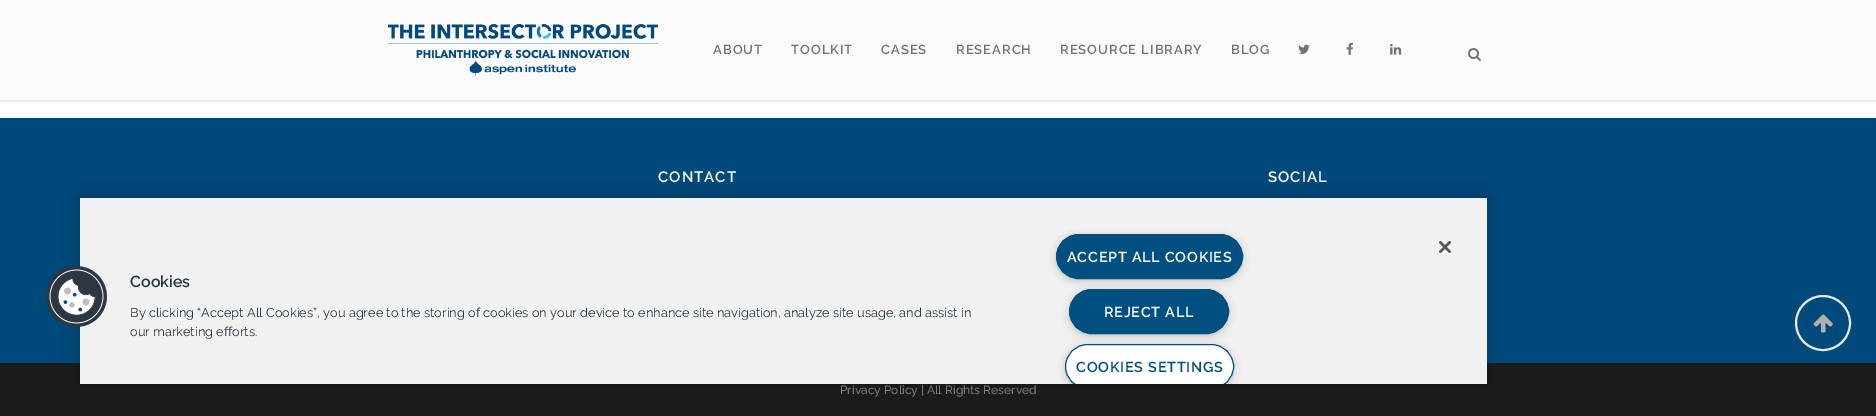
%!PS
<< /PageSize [1876 416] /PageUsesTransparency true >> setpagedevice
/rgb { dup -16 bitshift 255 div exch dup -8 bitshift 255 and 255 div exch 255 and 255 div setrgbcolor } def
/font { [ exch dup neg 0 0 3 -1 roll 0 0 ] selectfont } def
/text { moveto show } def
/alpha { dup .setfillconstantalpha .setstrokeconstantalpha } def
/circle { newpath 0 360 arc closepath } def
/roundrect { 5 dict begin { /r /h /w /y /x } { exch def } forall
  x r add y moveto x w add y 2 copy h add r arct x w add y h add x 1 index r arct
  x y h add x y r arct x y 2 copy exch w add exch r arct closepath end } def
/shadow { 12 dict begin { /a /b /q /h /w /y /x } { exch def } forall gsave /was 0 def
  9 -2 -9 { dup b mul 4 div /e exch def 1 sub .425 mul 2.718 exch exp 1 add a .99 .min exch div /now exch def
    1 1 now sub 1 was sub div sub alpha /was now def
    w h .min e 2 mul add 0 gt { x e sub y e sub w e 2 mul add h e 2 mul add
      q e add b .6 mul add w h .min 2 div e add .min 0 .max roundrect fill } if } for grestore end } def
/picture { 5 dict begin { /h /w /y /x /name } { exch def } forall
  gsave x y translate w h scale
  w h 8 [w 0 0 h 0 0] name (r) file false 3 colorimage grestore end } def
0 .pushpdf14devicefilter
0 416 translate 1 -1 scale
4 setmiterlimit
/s1 { /Raleway-Medium 12 font 16#818181 rgb } def
/s2 { /Raleway-SemiBold 16 font 16#263640 rgb } def
/s3 { /Raleway-Regular 12.8 font 16#263640 rgb } def
16#FFFFFF rgb
0 0 1876 416 rectfill
16#000000 rgb
0 1 1876 100 0 1.5 0.11 shadow
16#FAFAFA rgb
0 0 1876 100 rectfill
(pic1.raw) 388 23 270 53 picture
/Raleway-SemiBold 13 font
16#737373 rgb
713 54 moveto 1 0 (ABOUT) ashow
791 54 moveto 1 0 (TOOLKIT) ashow
881 54 moveto 1 0 (CASES) ashow
956 54 moveto 1 0 (RESEARCH) ashow
1060 54 moveto 1 0 (RESOURCE LIBRARY) ashow
1231 54 moveto 1 0 (BLOG) ashow
(pic2.raw) 1298 44 12 10 picture
(pic3.raw) 1346 42 7 13 picture
(pic4.raw) 1390 43 12 12 picture
(pic5.raw) 1468 48 13 13 picture
16#00497B rgb
0 118 1876 245 rectfill
/Raleway-SemiBold 15 font
16#FFFFFF rgb
658 182 moveto 1 0 (CONTACT) ashow
1268 182 moveto 1 0 (SOCIAL) ashow
16#1B1B1B rgb
0 363 1876 53 rectfill
s1
(Privacy Policy | All Rights Reserved) 840 394 text
16#E8E8E8 rgb
2 setlinewidth
1823 323 27 circle stroke
(pic6.raw) 1813 314 20 19 picture
16#000000 rgb
80 198 1407 186 0 9 0.2 shadow
16#F1F1F1 rgb
80 198 1407 186 rectfill
(pic7.raw) 46 266 61 61 picture
(pic8.raw) 1439 241 12 12 picture
s2
(Cookies) 130 287 text
s3
(By clicking “Accept All Cookies”, you agree to the storing of cookies on your device to enhance site navigation, analyze site usage, and assist in) 130 317 text
(our marketing efforts.) 130 336 text
16#999999 rgb
1059 239 181 39 19.5 5 1 shadow
16#004F81 rgb
1056.5 234.5 186 44 22 roundrect gsave fill grestore
1 setlinewidth
stroke
/Raleway-SemiBold 14.4 font
16#FFFFFF rgb
1067 262 moveto 0.75 0 (ACCEPT ALL COOKIES) ashow
16#999999 rgb
1072 294 154 39 19.5 5 1 shadow
16#004F81 rgb
1069.5 289.5 159 44 22 roundrect gsave fill grestore
stroke
16#FFFFFF rgb
1104 317 moveto 0.75 0 (REJECT ALL) ashow
gsave
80 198 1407 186 rectclip
16#999999 rgb
1068 349 163 39 19.5 5 1 shadow
grestore
gsave
80 198 1407 186 rectclip
1065.5 344.5 168 44 22 roundrect gsave fill grestore
16#004F81 rgb
stroke
grestore
16#004F81 rgb
1076 372 moveto 0.75 0 (COOKIES SETTINGS) ashow
.poppdf14devicefilter showpage
